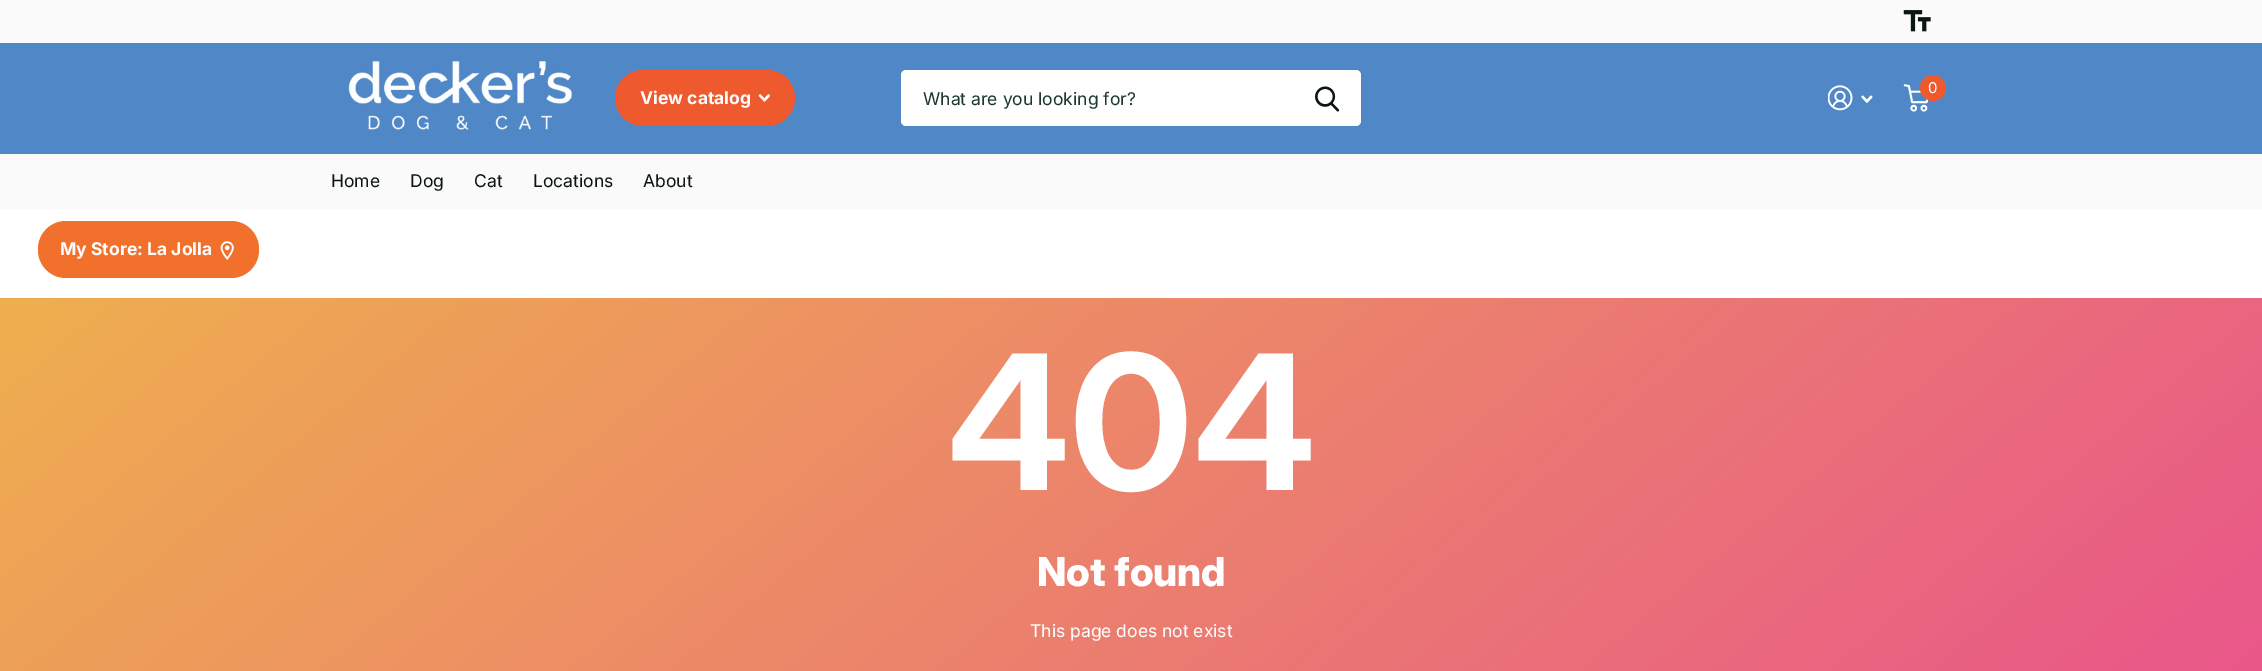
%!PS
<< /PageSize [2262 671] >> setpagedevice
/rgb { dup -16 bitshift 255 div exch dup -8 bitshift 255 and 255 div exch 255 and 255 div setrgbcolor } def
/font { [ exch dup neg 0 0 3 -1 roll 0 0 ] selectfont } def
/text { moveto show } def
/circle { newpath 0 360 arc closepath } def
/roundrect { 5 dict begin { /r /h /w /y /x } { exch def } forall
  x r add y moveto x w add y 2 copy h add r arct x w add y h add x 1 index r arct
  x y h add x y r arct x y 2 copy exch w add exch r arct closepath end } def
/picture { 5 dict begin { /h /w /y /x /name } { exch def } forall
  gsave x y translate w h scale
  w h 8 [w 0 0 h 0 0] name (r) file false 3 colorimage grestore end } def
0 671 translate 1 -1 scale
4 setmiterlimit
/s1 { /Inter-Regular 15 font 16#FFFFFF rgb } def
/s2 { /Inter-Bold 17.5 font 16#FFFFFF rgb } def
/s3 { /Inter-Regular 17.5 font 16#1C3830 rgb } def
/s4 { /Inter-Regular 17.5 font 16#0B1613 rgb } def
/s5 { /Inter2-Bold 188 font 16#FFFFFF rgb } def
/s6 { /Inter-ExtraBold 40 font 16#FFFFFF rgb } def
/s7 { /Inter-Regular 17.5 font 16#FFFFFF rgb } def
16#FFFFFF rgb
0 0 2262 671 rectfill
16#FAFAFA rgb
0 0 2262 43 rectfill
(pic1.raw) 1903 10 28 22 picture
16#5087C7 rgb
0 43 2262 111 rectfill
(pic2.raw) 348 61 225 69 picture
(pic3.raw) 1828 85 25 26 picture
(pic4.raw) 1861 95 12 8 picture
(pic5.raw) 1903 84 26 28 picture
16#EE5A2D rgb
1933 88 13 circle fill
s1
(0) 1928 93 text
16#EE5A2D rgb
615 70 180 56 28 roundrect fill
s2
(View catalog) 640 104 text
(pic6.raw) 758 94 12 8 picture
901 70 460 56 5 roundrect fill
s3
(What are you looking for?) 923 105 text
(pic7.raw) 1315 86 25 26 picture
16#FAFAFA rgb
0 154 2262 55 rectfill
s4
(Home) 331 187 text
(Dog) 410 187 text
(Cat) 474 187 text
(Locations) 533 187 text
(About) 643 187 text
16#F0702C rgb
38 221 221 57 28 roundrect fill
s2
(My Store: La Jolla) 60 255 text
(pic8.raw) 220 241 14 19 picture
gsave 0 298 moveto 2262 298 lineto 2262 671 lineto 0 671 lineto closepath clip newpath
<< /ShadingType 2 /ColorSpace /DeviceRGB /Coords [1828 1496 436 -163] /Extend [true true] /Function << /FunctionType 3 /Domain [0 1] /Functions [<< /FunctionType 2 /Domain [0 1] /C0 [0.91 0.29 0.576] /C1 [0.91 0.29 0.576] /N 1 >> << /FunctionType 2 /Domain [0 1] /C0 [0.91 0.29 0.576] /C1 [0.937 0.702 0.298] /N 1 >>] /Bounds [0.04] /Encode [0 1 0 1] >> >> shfill grestore
s5
(404) 947 490 text
s6
(Not found) 1037 586 text
s7
(This page does not exist) 1030 637 text
showpage
